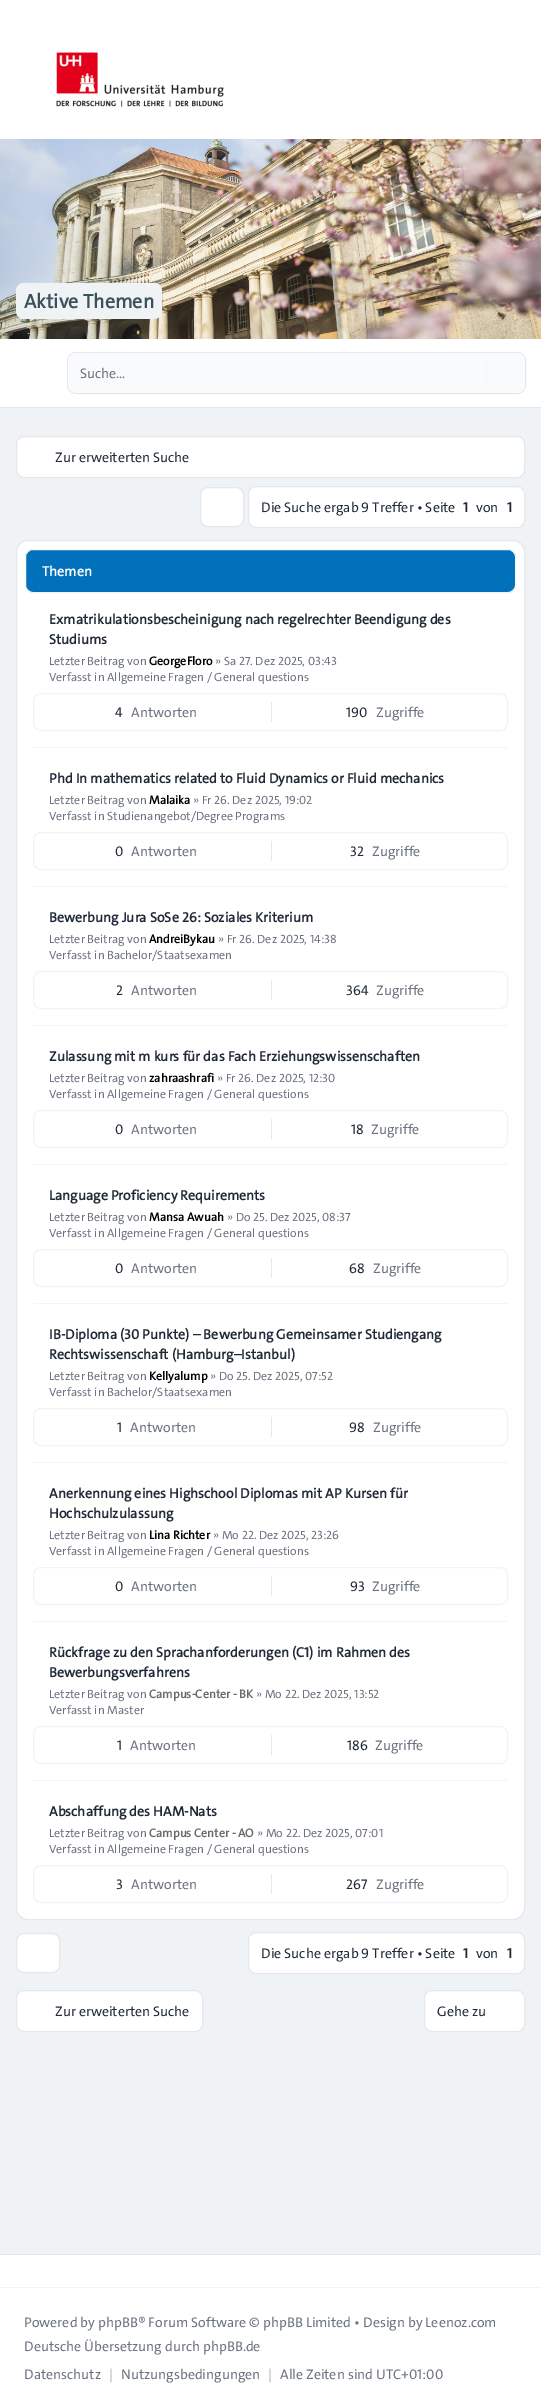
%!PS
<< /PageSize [541 2408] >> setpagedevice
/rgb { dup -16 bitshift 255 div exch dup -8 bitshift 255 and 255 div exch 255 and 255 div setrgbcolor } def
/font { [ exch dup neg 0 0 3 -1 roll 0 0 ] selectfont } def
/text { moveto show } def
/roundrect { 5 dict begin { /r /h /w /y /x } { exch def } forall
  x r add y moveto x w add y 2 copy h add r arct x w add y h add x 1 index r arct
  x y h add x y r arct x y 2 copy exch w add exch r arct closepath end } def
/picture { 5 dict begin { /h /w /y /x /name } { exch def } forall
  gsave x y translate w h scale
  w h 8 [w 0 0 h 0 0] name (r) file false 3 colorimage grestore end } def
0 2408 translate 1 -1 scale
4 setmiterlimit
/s1 { /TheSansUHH-Bold 20 font 16#3B515B rgb } def
/s2 { /TheSansUHH-Regular 14 font 16#6B7280 rgb } def
/s3 { /TheSansUHH-Regular 14 font 16#1F2937 rgb } def
/s4 { /TheSansUHH-Bold 14 font 16#1F2937 rgb } def
/s5 { /TheSansUHH-Bold 14 font 16#FFFFFF rgb } def
/s6 { /TheSansUHH-Regular 12 font 16#6B7280 rgb } def
/s7 { /TheSansUHH-Bold 12 font 16#000000 rgb } def
/s8 { /TheSansUHH-Bold 12 font 16#696969 rgb } def
/s9 { /TheSansUHH-Regular 14 font 16#B5B9C0 rgb } def
16#F0F3F6 rgb
0 0 541 2408 rectfill
16#FFFFFF rgb
0 0 541 139 rectfill
(pic1.raw) 56 52 168 55 picture
(pic2.raw) 0 139 541 200 picture
16#F0F3F6 rgb
16 283 146 36 8 roundrect fill
s1
(Aktive Themen) 24 308 text
16#FFFFFF rgb
0 339 541 68 rectfill
16#E5E7EB rgb
0 407 541 1 rectfill
67.5 352.5 458 41 8.5 roundrect stroke
16#F9FAFB rgb
68 353 457 40 8 roundrect fill
s2
(Suche…) 80 378 text
16#F3F4F6 rgb
486 361 1 24 rectfill
16#FFFFFF rgb
16.5 436.5 508 41 7.5 roundrect gsave fill grestore
16#E5E7EB rgb
stroke
s3
(Zur erweiterten Suche) 55 462 text
16#FFFFFF rgb
200.5 487.5 43 39 7.5 roundrect gsave fill grestore
16#E5E7EB rgb
stroke
16#FFFFFF rgb
248.5 486.5 276 41 7.5 roundrect gsave fill grestore
16#E5E7EB rgb
stroke
s3
(Die Suche ergab 9 Treffer • Seite) 261 512 text
s4
(1) 463 512 text
s3
(von) 476 512 text
s4
(1) 507 512 text
16#FFFFFF rgb
16.5 540.5 508 1379 11.5 roundrect gsave fill grestore
16#E5E7EB rgb
stroke
16#0271BB rgb
25.5 549.5 490 43 7.5 roundrect gsave fill grestore
16#F3F4F6 rgb
stroke
s5
(Themen) 42 576 text
s4
(Exmatrikulationsbescheinigung nach regelrechter Beendigung des) 49 624 text
(Studiums) 49 644 text
s6
(Letzter Beitrag von) 49 665 text
s7
(GeorgeFloro) 149 665 text
s6
(» Sa 27. Dez 2025, 03:43) 215 665 text
(Verfasst in Allgemeine Fragen / General questions) 49 681 text
16#F3F4F6 rgb
33.5 693.5 474 37 7.5 roundrect stroke
s3
(4) 115 717 text
s2
(Antworten) 131 717 text
16#E5E7EB rgb
271 702 1 20 rectfill
s3
(190) 346 717 text
s2
(Zugriffe) 376 717 text
16#F3F4F6 rgb
33 747 475 1 rectfill
s4
(Phd In mathematics related to Fluid Dynamics or Fluid mechanics) 49 783 text
s6
(Letzter Beitrag von) 49 804 text
s7
(Malaika) 149 804 text
s6
(» Fr 26. Dez 2025, 19:02) 193 804 text
(Verfasst in Studienangebot/Degree Programs) 49 820 text
16#F3F4F6 rgb
33.5 832.5 474 37 7.5 roundrect stroke
s3
(0) 115 856 text
s2
(Antworten) 131 856 text
16#E5E7EB rgb
271 841 1 20 rectfill
s3
(32) 350 856 text
s2
(Zugriffe) 372 856 text
16#F3F4F6 rgb
33 886 475 1 rectfill
s4
(Bewerbung Jura SoSe 26: Soziales Kriterium) 49 922 text
s6
(Letzter Beitrag von) 49 943 text
s7
(AndreiBykau) 149 943 text
s6
(» Fr 26. Dez 2025, 14:38) 218 943 text
(Verfasst in Bachelor/Staatsexamen) 49 959 text
16#F3F4F6 rgb
33.5 971.5 474 37 7.5 roundrect stroke
s3
(2) 116 995 text
s2
(Antworten) 131 995 text
16#E5E7EB rgb
271 980 1 20 rectfill
s3
(364) 346 995 text
s2
(Zugriffe) 376 995 text
16#F3F4F6 rgb
33 1025 475 1 rectfill
s4
(Zulassung mit m kurs für das Fach Erziehungswissenschaften) 49 1061 text
s6
(Letzter Beitrag von) 49 1082 text
s7
(zahraashrafi) 149 1082 text
s6
(» Fr 26. Dez 2025, 12:30) 217 1082 text
(Verfasst in Allgemeine Fragen / General questions) 49 1098 text
16#F3F4F6 rgb
33.5 1110.5 474 37 7.5 roundrect stroke
s3
(0) 115 1134 text
s2
(Antworten) 131 1134 text
16#E5E7EB rgb
271 1119 1 20 rectfill
s3
(18) 351 1134 text
s2
(Zugriffe) 371 1134 text
16#F3F4F6 rgb
33 1164 475 1 rectfill
s4
(Language Proficiency Requirements) 49 1200 text
s6
(Letzter Beitrag von) 49 1221 text
s7
(Mansa Awuah) 149 1221 text
s6
(» Do 25. Dez 2025, 08:37) 227 1221 text
(Verfasst in Allgemeine Fragen / General questions) 49 1237 text
16#F3F4F6 rgb
33.5 1249.5 474 37 7.5 roundrect stroke
s3
(0) 115 1273 text
s2
(Antworten) 131 1273 text
16#E5E7EB rgb
271 1258 1 20 rectfill
s3
(68) 349 1273 text
s2
(Zugriffe) 373 1273 text
16#F3F4F6 rgb
33 1303 475 1 rectfill
s4
(IB-Diploma \(30 Punkte\) – Bewerbung Gemeinsamer Studiengang) 49 1339 text
(Rechtswissenschaft \(Hamburg–Istanbul\)) 49 1359 text
s6
(Letzter Beitrag von) 49 1380 text
s7
(Kellyalump) 149 1380 text
s6
(» Do 25. Dez 2025, 07:52) 210 1380 text
(Verfasst in Bachelor/Staatsexamen) 49 1396 text
16#F3F4F6 rgb
33.5 1408.5 474 37 7.5 roundrect stroke
s3
(1) 117 1432 text
s2
(Antworten) 130 1432 text
16#E5E7EB rgb
271 1417 1 20 rectfill
s3
(98) 349 1432 text
s2
(Zugriffe) 373 1432 text
16#F3F4F6 rgb
33 1462 475 1 rectfill
s4
(Anerkennung eines Highschool Diplomas mit AP Kursen für) 49 1498 text
(Hochschulzulassung) 49 1518 text
s6
(Letzter Beitrag von) 49 1539 text
s7
(Lina Richter) 149 1539 text
s6
(» Mo 22. Dez 2025, 23:26) 213 1539 text
(Verfasst in Allgemeine Fragen / General questions) 49 1555 text
16#F3F4F6 rgb
33.5 1567.5 474 37 7.5 roundrect stroke
s3
(0) 115 1591 text
s2
(Antworten) 131 1591 text
16#E5E7EB rgb
271 1576 1 20 rectfill
s3
(93) 350 1591 text
s2
(Zugriffe) 372 1591 text
16#F3F4F6 rgb
33 1621 475 1 rectfill
s4
(Rückfrage zu den Sprachanforderungen \(C1\) im Rahmen des) 49 1657 text
(Bewerbungsverfahrens) 49 1677 text
s6
(Letzter Beitrag von) 49 1698 text
s8
(Campus-Center - BK) 149 1698 text
s6
(» Mo 22. Dez 2025, 13:52) 256 1698 text
(Verfasst in Master) 49 1714 text
16#F3F4F6 rgb
33.5 1726.5 474 37 7.5 roundrect stroke
s3
(1) 117 1750 text
s2
(Antworten) 130 1750 text
16#E5E7EB rgb
271 1735 1 20 rectfill
s3
(186) 347 1750 text
s2
(Zugriffe) 375 1750 text
16#F3F4F6 rgb
33 1780 475 1 rectfill
s4
(Abschaffung des HAM-Nats) 49 1816 text
s6
(Letzter Beitrag von) 49 1837 text
s8
(Campus Center - AO) 149 1837 text
s6
(» Mo 22. Dez 2025, 07:01) 257 1837 text
(Verfasst in Allgemeine Fragen / General questions) 49 1853 text
16#F3F4F6 rgb
33.5 1865.5 474 37 7.5 roundrect stroke
s3
(3) 116 1889 text
s2
(Antworten) 131 1889 text
16#E5E7EB rgb
271 1874 1 20 rectfill
s3
(267) 346 1889 text
s2
(Zugriffe) 376 1889 text
16#FFFFFF rgb
16.5 1933.5 43 39 7.5 roundrect gsave fill grestore
16#E5E7EB rgb
stroke
16#FFFFFF rgb
248.5 1932.5 276 41 7.5 roundrect gsave fill grestore
16#E5E7EB rgb
stroke
s3
(Die Suche ergab 9 Treffer • Seite) 261 1958 text
s4
(1) 463 1958 text
s3
(von) 476 1958 text
s4
(1) 507 1958 text
16#FFFFFF rgb
16.5 1990.5 186 41 7.5 roundrect gsave fill grestore
16#E5E7EB rgb
stroke
s3
(Zur erweiterten Suche) 55 2016 text
16#FFFFFF rgb
424.5 1990.5 100 41 7.5 roundrect gsave fill grestore
16#E5E7EB rgb
stroke
s3
(Gehe zu) 437 2016 text
16#FFFFFF rgb
0 2255 541 153 rectfill
16#E5E7EB rgb
0 2254 541 1 rectfill
16#F3F4F6 rgb
0 2287 541 1 rectfill
s2
(Powered by phpBB® Forum Software © phpBB Limited • Design by Leenoz.com) 24 2327 text
(Deutsche Übersetzung durch phpBB.de) 24 2351 text
(Datenschutz) 24 2379 text
s9
(|) 109 2379 text
s2
(Nutzungsbedingungen) 121 2379 text
s9
(|) 268 2379 text
s2
(Alle Zeiten sind UTC+01:00) 280 2379 text
showpage
